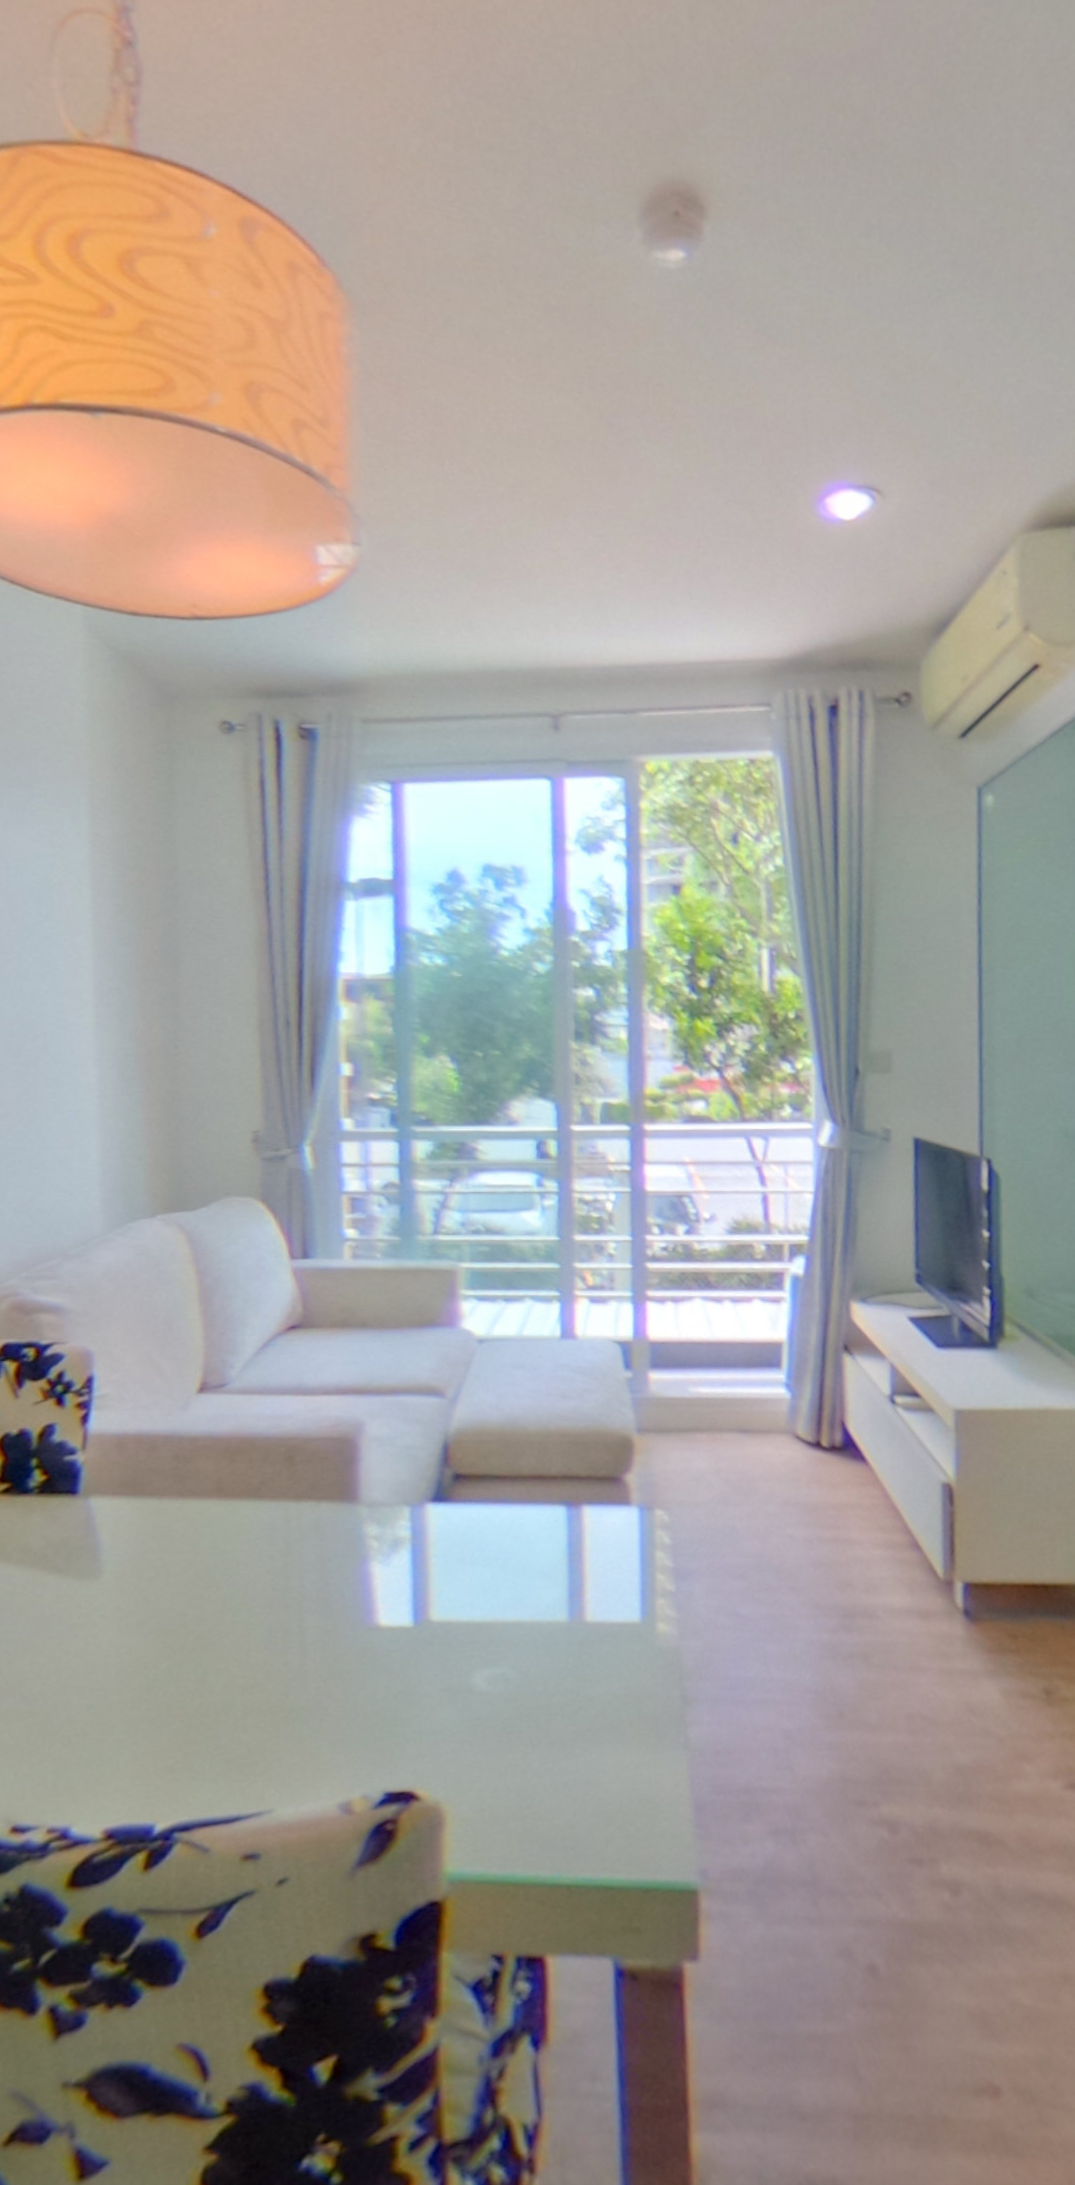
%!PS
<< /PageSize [1075 2185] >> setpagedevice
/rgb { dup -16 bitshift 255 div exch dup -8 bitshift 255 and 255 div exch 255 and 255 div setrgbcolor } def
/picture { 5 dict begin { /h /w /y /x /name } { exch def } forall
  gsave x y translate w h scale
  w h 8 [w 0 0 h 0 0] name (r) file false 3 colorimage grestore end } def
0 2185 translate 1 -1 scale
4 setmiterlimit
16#FFFFFF rgb
0 0 1075 2185 rectfill
(pic1.raw) 0 0 1075 2185 picture
showpage
